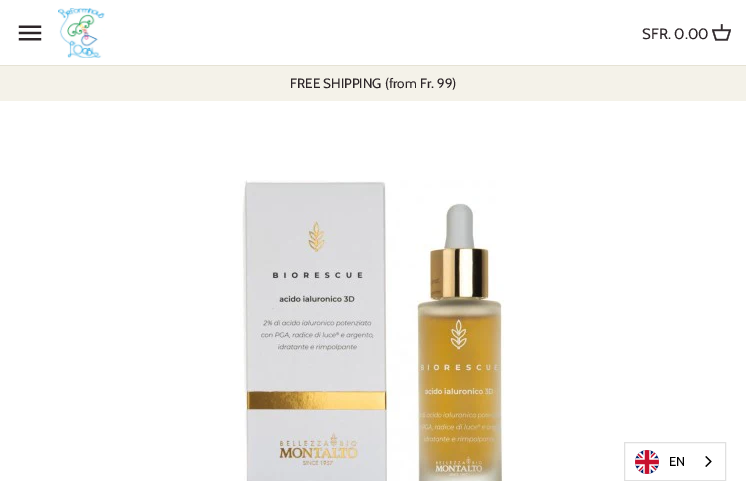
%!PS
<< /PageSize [746 481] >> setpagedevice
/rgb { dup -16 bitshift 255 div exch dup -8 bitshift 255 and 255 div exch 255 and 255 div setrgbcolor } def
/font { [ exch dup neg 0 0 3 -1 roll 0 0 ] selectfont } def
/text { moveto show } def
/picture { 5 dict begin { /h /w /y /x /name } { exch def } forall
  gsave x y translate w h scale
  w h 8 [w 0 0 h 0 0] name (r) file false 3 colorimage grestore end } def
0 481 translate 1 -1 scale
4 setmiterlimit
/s1 { /Cabin-Regular 15 font 16#2C2528 rgb } def
/s2 { /Cabin-Regular 13.5 font 16#2C2528 rgb } def
/s3 { /Cabin-Regular 13 font 16#000000 rgb } def
16#FFFFFF rgb
0 0 746 481 rectfill
16#E5E2D4 rgb
0 65 746 1 rectfill
(pic1.raw) 18 25 24 16 picture
(pic2.raw) 58 8 47 50 picture
s1
(SFR. 0.00) 642 39 text
(pic3.raw) 712 24 19 17 picture
16#F4F2E9 rgb
0 66 746 35 rectfill
s2
(FREE SHIPPING \(from Fr. 99\)) 290 88 text
(pic4.raw) 240 180 264 301 picture
16#E0E0E0 rgb
624.5 442.5 101 38 rectstroke
(pic5.raw) 635 450 24 24 picture
s3
(EN) 669 466 text
(pic6.raw) 705 456 7 11 picture
showpage
